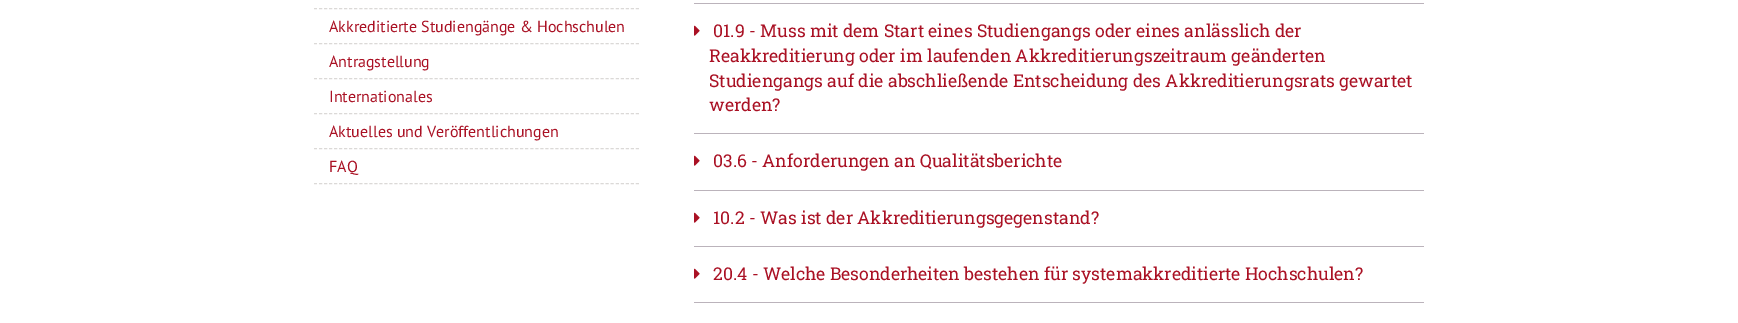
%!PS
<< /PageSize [1738 323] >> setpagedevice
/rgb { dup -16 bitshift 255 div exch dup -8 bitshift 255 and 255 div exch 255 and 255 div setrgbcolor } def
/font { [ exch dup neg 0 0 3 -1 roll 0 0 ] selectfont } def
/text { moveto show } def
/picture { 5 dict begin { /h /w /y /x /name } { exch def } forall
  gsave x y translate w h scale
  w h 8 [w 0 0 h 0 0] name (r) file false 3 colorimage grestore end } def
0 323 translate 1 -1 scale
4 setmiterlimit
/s1 { /PTSans-Regular 16 font 16#AA1124 rgb } def
/s2 { /RobotoSlab-Regular 17.6 font 16#AA1124 rgb } def
16#FFFFFF rgb
0 0 1738 323 rectfill
16#DBD9D7 rgb
[3 2.03] 0 setdash
314 8.5 moveto 639 8.5 lineto stroke
314 43.5 moveto 639 43.5 lineto stroke
s1
(Akkreditierte Studiengänge & Hochschulen) 329 32 text
16#DBD9D7 rgb
314 78.5 moveto 639 78.5 lineto stroke
s1
(Antragstellung) 329 67 text
16#DBD9D7 rgb
314 113.5 moveto 639 113.5 lineto stroke
s1
(Internationales) 329 102 text
16#DBD9D7 rgb
314 148.5 moveto 639 148.5 lineto stroke
s1
(Aktuelles und Veröffentlichungen) 329 137 text
16#DBD9D7 rgb
314 183.5 moveto 639 183.5 lineto stroke
s1
(FAQ) 329 172 text
16#BBB3BB rgb
694 3 730 1 rectfill
694 133 730 1 rectfill
(pic1.raw) 694 25 6 11 picture
s2
(01.9 - Muss mit dem Start eines Studiengangs oder eines anlässlich der) 713 37 text
(Reakkreditierung oder im laufenden Akkreditierungszeitraum geänderten) 709 62 text
(Studiengangs auf die abschließende Entscheidung des Akkreditierungsrats gewartet) 709 87 text
(werden?) 709 111 text
16#BBB3BB rgb
694 190 730 1 rectfill
(pic1.raw) 694 155 6 11 picture
s2
(03.6 - Anforderungen an Qualitätsberichte) 713 167 text
16#BBB3BB rgb
694 246 730 1 rectfill
(pic1.raw) 694 212 6 11 picture
s2
(10.2 - Was ist der Akkreditierungsgegenstand?) 713 224 text
16#BBB3BB rgb
694 302 730 1 rectfill
(pic1.raw) 694 268 6 11 picture
s2
(20.4 - Welche Besonderheiten bestehen für systemakkreditierte Hochschulen?) 713 280 text
showpage
